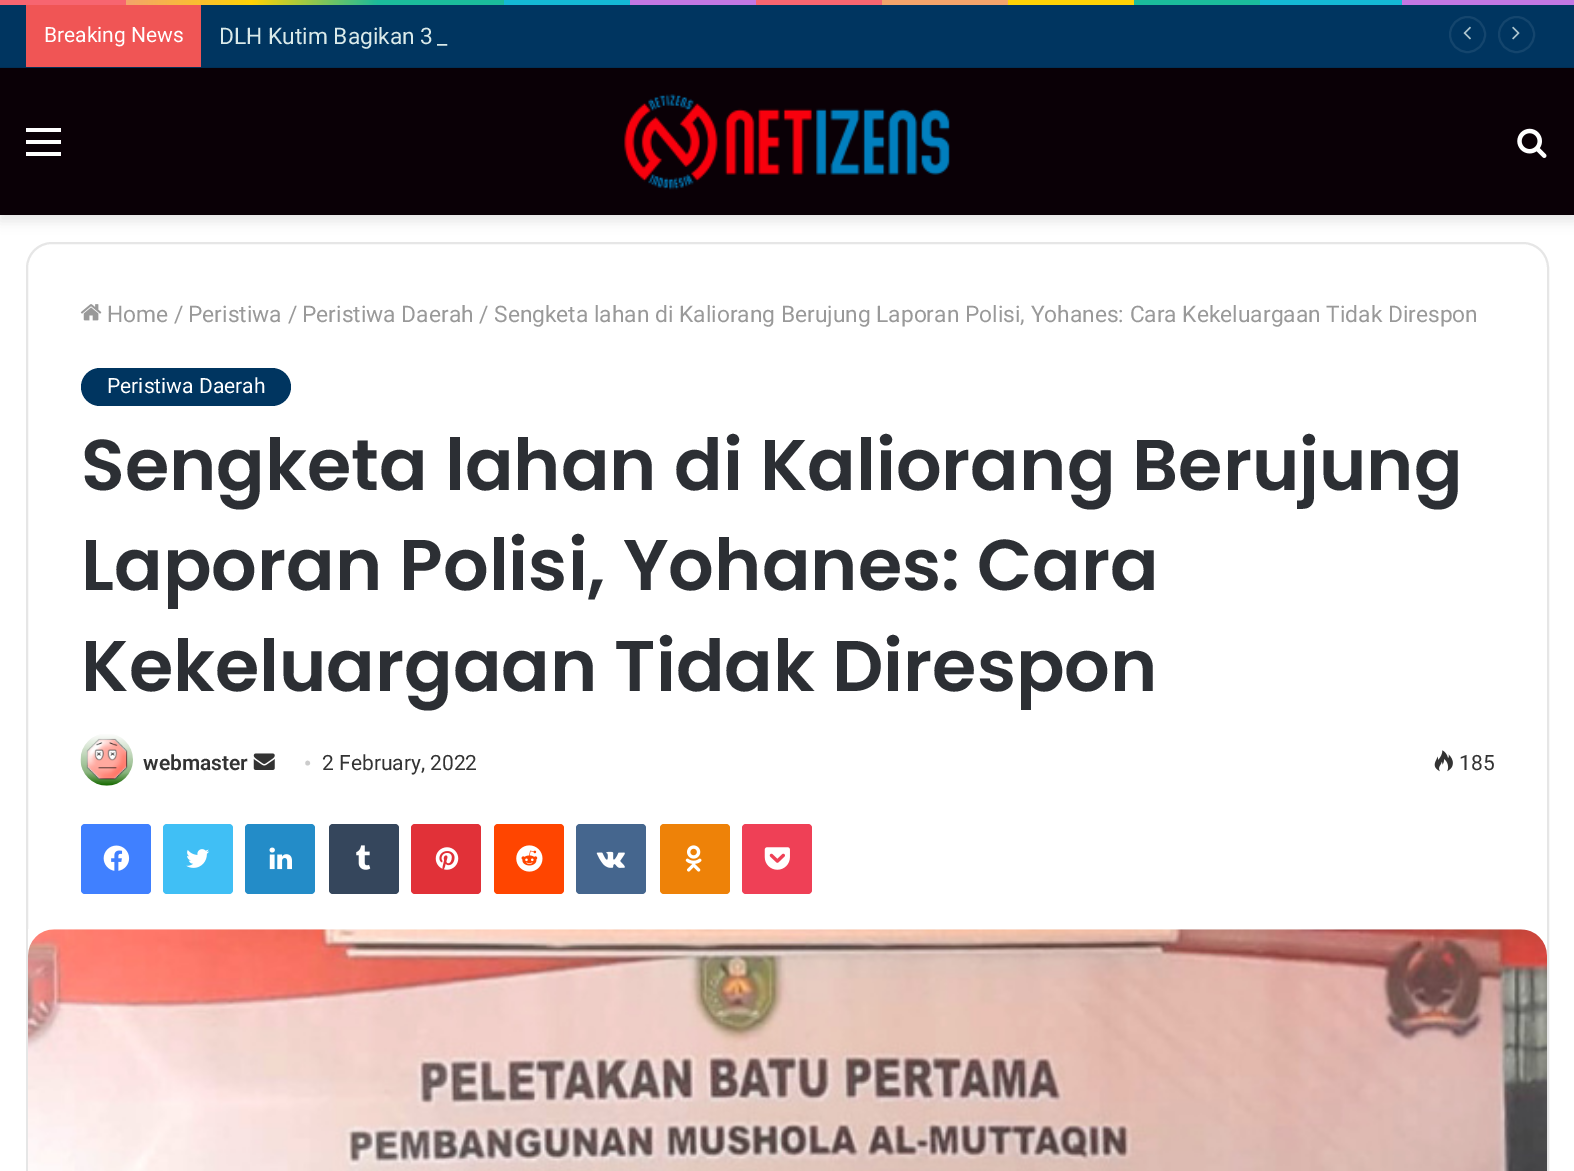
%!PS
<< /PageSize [1574 1171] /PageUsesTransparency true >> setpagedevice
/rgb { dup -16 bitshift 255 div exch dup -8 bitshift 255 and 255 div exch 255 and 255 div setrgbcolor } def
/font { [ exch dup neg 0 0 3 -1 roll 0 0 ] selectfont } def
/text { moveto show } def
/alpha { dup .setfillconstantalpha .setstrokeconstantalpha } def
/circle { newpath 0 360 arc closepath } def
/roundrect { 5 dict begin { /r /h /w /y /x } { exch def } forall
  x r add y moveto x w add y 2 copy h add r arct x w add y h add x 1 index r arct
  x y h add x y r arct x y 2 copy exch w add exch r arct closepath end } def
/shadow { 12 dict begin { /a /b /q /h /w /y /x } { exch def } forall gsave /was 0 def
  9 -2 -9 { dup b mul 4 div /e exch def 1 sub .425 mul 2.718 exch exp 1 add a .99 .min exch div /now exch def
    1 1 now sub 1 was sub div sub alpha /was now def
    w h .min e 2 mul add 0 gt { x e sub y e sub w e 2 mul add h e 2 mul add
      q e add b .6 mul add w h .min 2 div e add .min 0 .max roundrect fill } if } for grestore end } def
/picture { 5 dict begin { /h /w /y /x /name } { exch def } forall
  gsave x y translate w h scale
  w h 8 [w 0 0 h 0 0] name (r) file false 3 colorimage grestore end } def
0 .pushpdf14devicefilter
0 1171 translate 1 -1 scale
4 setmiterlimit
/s1 { /Roboto-Regular 21 font 16#FFFFFF rgb } def
/s2 { /Roboto-Regular 22.75 font 16#DAEAEA rgb } def
/s3 { /Roboto-Regular 22.75 font 16#999999 rgb } def
/s4 { /Poppins-SemiBold 71.75 font 16#2C2F34 rgb } def
/s5 { /Roboto-SemiBold 21 font 16#333333 rgb } def
/s6 { /LiberationSerif-Regular 21 font 16#CCCCCC rgb } def
/s7 { /Roboto-Regular 21 font 16#333333 rgb } def
16#FFFFFF rgb
0 0 1574 1171 rectfill
gsave 0 0 moveto 1574 0 lineto 1574 5 lineto 0 5 lineto closepath clip newpath
<< /ShadingType 2 /ColorSpace /DeviceRGB /Coords [0 2.6 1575 2.6] /Extend [true true] /Function << /FunctionType 3 /Domain [0 1] /Functions [<< /FunctionType 2 /Domain [0 1] /C0 [0.969 0.396 0.439] /C1 [0.969 0.396 0.439] /N 1 >> << /FunctionType 2 /Domain [0 1] /C0 [0.953 0.643 0.42] /C1 [1 0.824 0.02] /N 1 >> << /FunctionType 2 /Domain [0 1] /C0 [1 0.824 0.02] /C1 [0.106 0.737 0.608] /N 1 >> << /FunctionType 2 /Domain [0 1] /C0 [0.106 0.737 0.608] /C1 [0.106 0.737 0.608] /N 1 >> << /FunctionType 2 /Domain [0 1] /C0 [0.078 0.725 0.835] /C1 [0.078 0.725 0.835] /N 1 >> << /FunctionType 2 /Domain [0 1] /C0 [0.765 0.467 0.894] /C1 [0.765 0.467 0.894] /N 1 >> << /FunctionType 2 /Domain [0 1] /C0 [0.969 0.396 0.439] /C1 [0.969 0.396 0.439] /N 1 >> << /FunctionType 2 /Domain [0 1] /C0 [0.953 0.643 0.42] /C1 [0.953 0.643 0.42] /N 1 >> << /FunctionType 2 /Domain [0 1] /C0 [1 0.824 0.02] /C1 [1 0.824 0.02] /N 1 >> << /FunctionType 2 /Domain [0 1] /C0 [0.106 0.737 0.608] /C1 [0.106 0.737 0.608] /N 1 >> << /FunctionType 2 /Domain [0 1] /C0 [0.078 0.725 0.835] /C1 [0.078 0.725 0.835] /N 1 >> << /FunctionType 2 /Domain [0 1] /C0 [0.765 0.467 0.894] /C1 [0.765 0.467 0.894] /N 1 >>] /Bounds [0.08 0.16 0.24 0.32 0.4 0.48 0.56 0.64 0.72 0.8 0.89] /Encode [0 1 0 1 0 1 0 1 0 1 0 1 0 1 0 1 0 1 0 1 0 1 0 1] >> >> shfill grestore
16#000000 rgb
0 74 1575 147 0 6 0.1 shadow
16#003560 rgb
0 5 1574 63 rectfill
0.1 alpha
16#000000 rgb
0 67 1574 1 rectfill
1 alpha
16#F05555 rgb
26 5 175 62 rectfill
s1
(Breaking News) 44 42 text
s2
(DLH Kutim Bagikan 3) 219 44 text
(_) 437 44 text
16#14456D rgb
2 setlinewidth
1467.5 34.5 17.5 circle stroke
(pic1.raw) 1463 26 8 14 picture
1516.5 34.5 17.5 circle stroke
(pic2.raw) 1512 26 8 14 picture
16#0A0006 rgb
0 68 1574 147 rectfill
16#FFFFFF rgb
26 140 35 4 rectfill
26 128 35 4 rectfill
26 152 35 4 rectfill
(pic3.raw) 624 94 326 96 picture
(pic4.raw) 1517 128 30 30 picture
16#E6E6E6 rgb
27 243 1521 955 25 roundrect stroke
(pic5.raw) 80 304 22 17 picture
s3
(Home) 107 322 text
(/) 174 322 text
(Peristiwa) 188 322 text
(/) 288 322 text
(Peristiwa Daerah) 302 322 text
(/) 479 322 text
(Sengketa lahan di Kaliorang Berujung Laporan Polisi, Yohanes: Cara Kekeluargaan Tidak Direspon) 494 322 text
16#003560 rgb
81 368 210 38 19 roundrect fill
s1
(Peristiwa Daerah) 107 393 text
s4
(Sengketa lahan di Kaliorang Berujung) 81 490 text
(Laporan Polisi, Yohanes: Cara) 81 590 text
(Kekeluargaan Tidak Direspon) 81 691 text
(pic6.raw) 80 734 53 52 picture
s5
(webmaster) 143 770 text
(pic7.raw) 253 753 22 17 picture
s6
(•) 304 770 text
s7
(2 February, 2022) 322 770 text
(pic8.raw) 1434 750 19 22 picture
(185) 1459 770 text
16#4080FF rgb
81 824 70 70 4 roundrect fill
(pic9.raw) 103 845 27 26 picture
16#40BFF5 rgb
163 824 70 70 4 roundrect fill
(pic10.raw) 186 849 24 19 picture
16#238CC8 rgb
245 824 70 70 4 roundrect fill
(pic11.raw) 269 847 23 23 picture
16#35465C rgb
329 824 70 70 4 roundrect fill
(pic12.raw) 356 845 15 25 picture
16#E13138 rgb
411 824 70 70 4 roundrect fill
(pic13.raw) 435 847 24 23 picture
16#FF4500 rgb
494 824 70 70 4 roundrect fill
(pic14.raw) 516 845 27 27 picture
16#45668E rgb
576 824 70 70 4 roundrect fill
(pic15.raw) 596 851 29 17 picture
16#EE8208 rgb
660 824 70 70 4 roundrect fill
(pic16.raw) 685 845 17 27 picture
16#EF4056 rgb
742 824 70 70 4 roundrect fill
(pic17.raw) 764 847 26 23 picture
(pic18.raw) 28 929 1519 242 picture
.poppdf14devicefilter showpage
